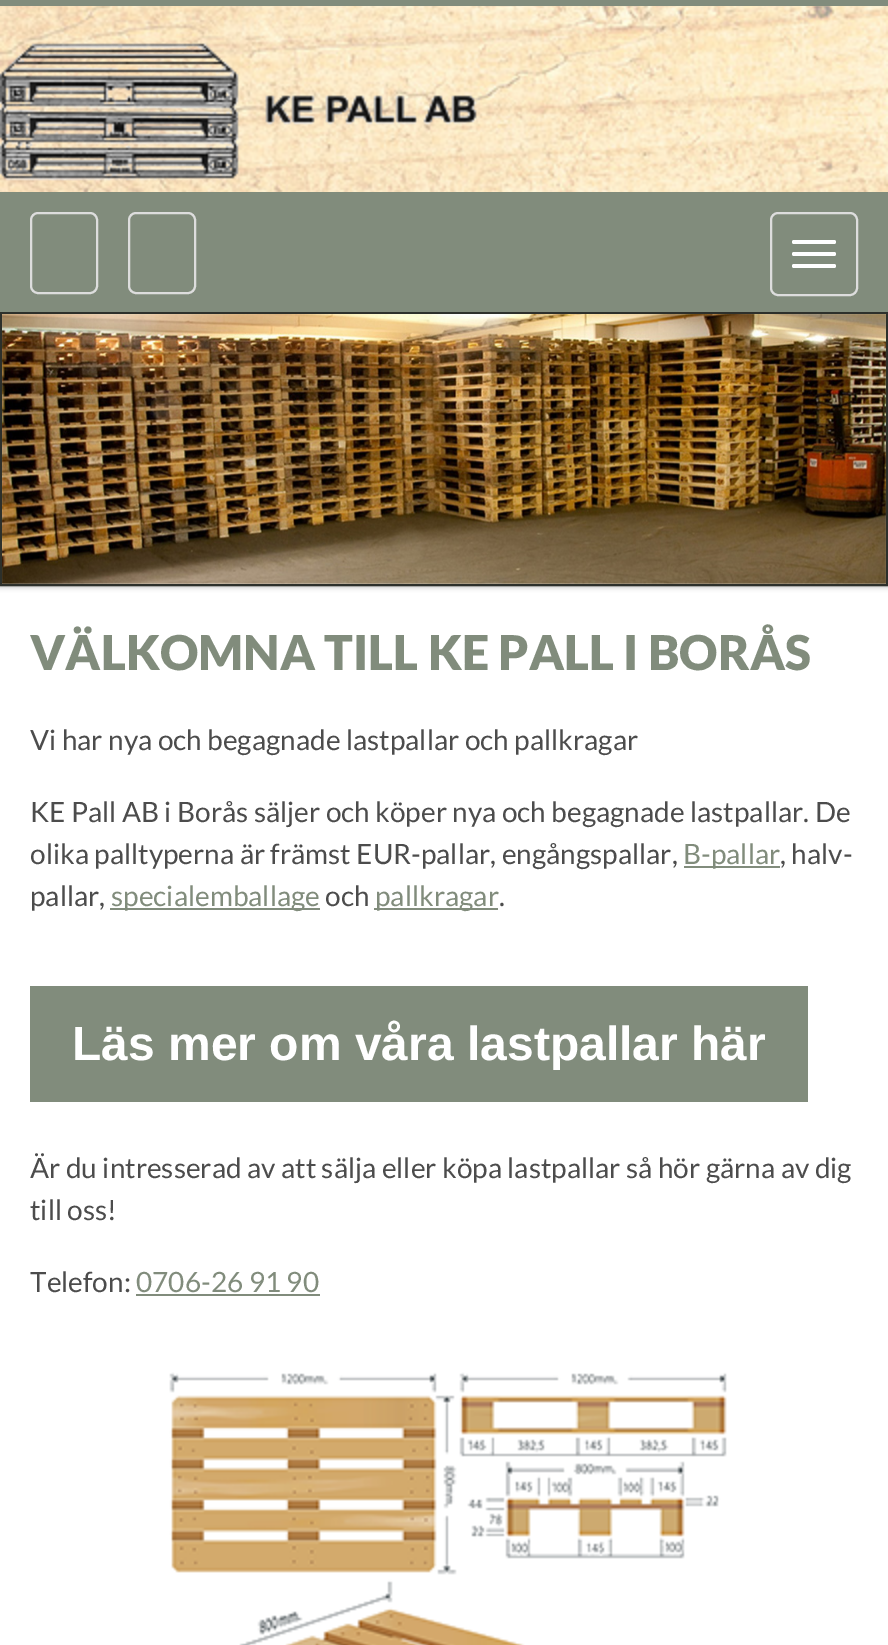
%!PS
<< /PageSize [888 1645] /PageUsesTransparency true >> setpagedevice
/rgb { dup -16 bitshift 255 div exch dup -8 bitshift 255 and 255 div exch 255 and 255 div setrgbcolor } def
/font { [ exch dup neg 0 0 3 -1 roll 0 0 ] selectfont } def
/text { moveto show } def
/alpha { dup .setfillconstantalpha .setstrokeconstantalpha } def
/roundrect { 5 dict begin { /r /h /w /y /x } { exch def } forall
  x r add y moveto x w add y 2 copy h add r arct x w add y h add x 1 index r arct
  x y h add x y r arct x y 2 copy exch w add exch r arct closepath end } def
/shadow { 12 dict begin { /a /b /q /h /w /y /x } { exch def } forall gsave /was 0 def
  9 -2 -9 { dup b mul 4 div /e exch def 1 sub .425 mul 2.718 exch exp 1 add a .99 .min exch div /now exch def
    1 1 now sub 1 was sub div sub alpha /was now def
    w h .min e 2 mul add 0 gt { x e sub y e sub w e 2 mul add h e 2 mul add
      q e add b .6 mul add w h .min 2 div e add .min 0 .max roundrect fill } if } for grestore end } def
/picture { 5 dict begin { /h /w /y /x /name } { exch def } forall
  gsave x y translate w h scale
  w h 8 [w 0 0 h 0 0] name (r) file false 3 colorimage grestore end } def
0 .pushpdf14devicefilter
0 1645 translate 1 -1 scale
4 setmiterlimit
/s1 { /Lato-Black 48 font 16#818C7C rgb } def
/s2 { /Lato-Regular 28 font 16#4C4C4C rgb } def
/s3 { /Lato-Regular 28 font 16#818C7C rgb } def
/s4 { /LiberationSans-Bold 48 font 16#FFFFFF rgb } def
16#FFFFFF rgb
0 0 888 1645 rectfill
(pic1.raw) 0 6 888 186 picture
16#818C7C rgb
0 0 888 6 rectfill
(pic2.raw) 0 38 477 143 picture
16#999999 rgb
0 312 888 274 0 3 1 shadow
16#818C7C rgb
0 192 888 120 rectfill
16#DDDDDD rgb
2 setlinewidth
31 213 66 80 7 roundrect stroke
129 213 66 80 7 roundrect stroke
771 213 86 82 7 roundrect stroke
16#FFFFFF rgb
792 240 44 4 2 roundrect fill
792 252 44 4 2 roundrect fill
792 264 44 4 2 roundrect fill
16#2D302B rgb
1 313 886 272 rectstroke
(pic3.raw) 2 314 884 270 picture
s1
(VÄLKOMNA TILL KE PALL I BORÅS) 30 670 text
s2
(Vi har nya och begagnade lastpallar och pallkragar) 30 750 text
(KE Pall AB i Borås säljer och köper nya och begagnade lastpallar. De) 30 822 text
(olika palltyperna är främst EUR-pallar, engångspallar,) 30 864 text
16#818C7C rgb
684 866 96 2 rectfill
(B-pallar) 683 864 text
s2
(, halv-) 780 864 text
(pallar,) 30 906 text
16#818C7C rgb
110 908 210 2 rectfill
(specialemballage) 111 906 text
s2
(och) 325 906 text
16#818C7C rgb
374 908 124 2 rectfill
(pallkragar) 375 906 text
s2
(.) 499 906 text
16#818C7C rgb
30 986 778 116 rectfill
s4
(Läs mer om våra lastpallar här) 72 1060 text
s2
(Är du intresserad av att sälja eller köpa lastpallar så hör gärna av dig) 30 1178 text
(till oss!) 30 1220 text
(Telefon:) 30 1292 text
s3
(0706-26 91 90) 136 1292 text
136 1294 184 2 rectfill
(pic4.raw) 169 1372 558 273 picture
.poppdf14devicefilter showpage
